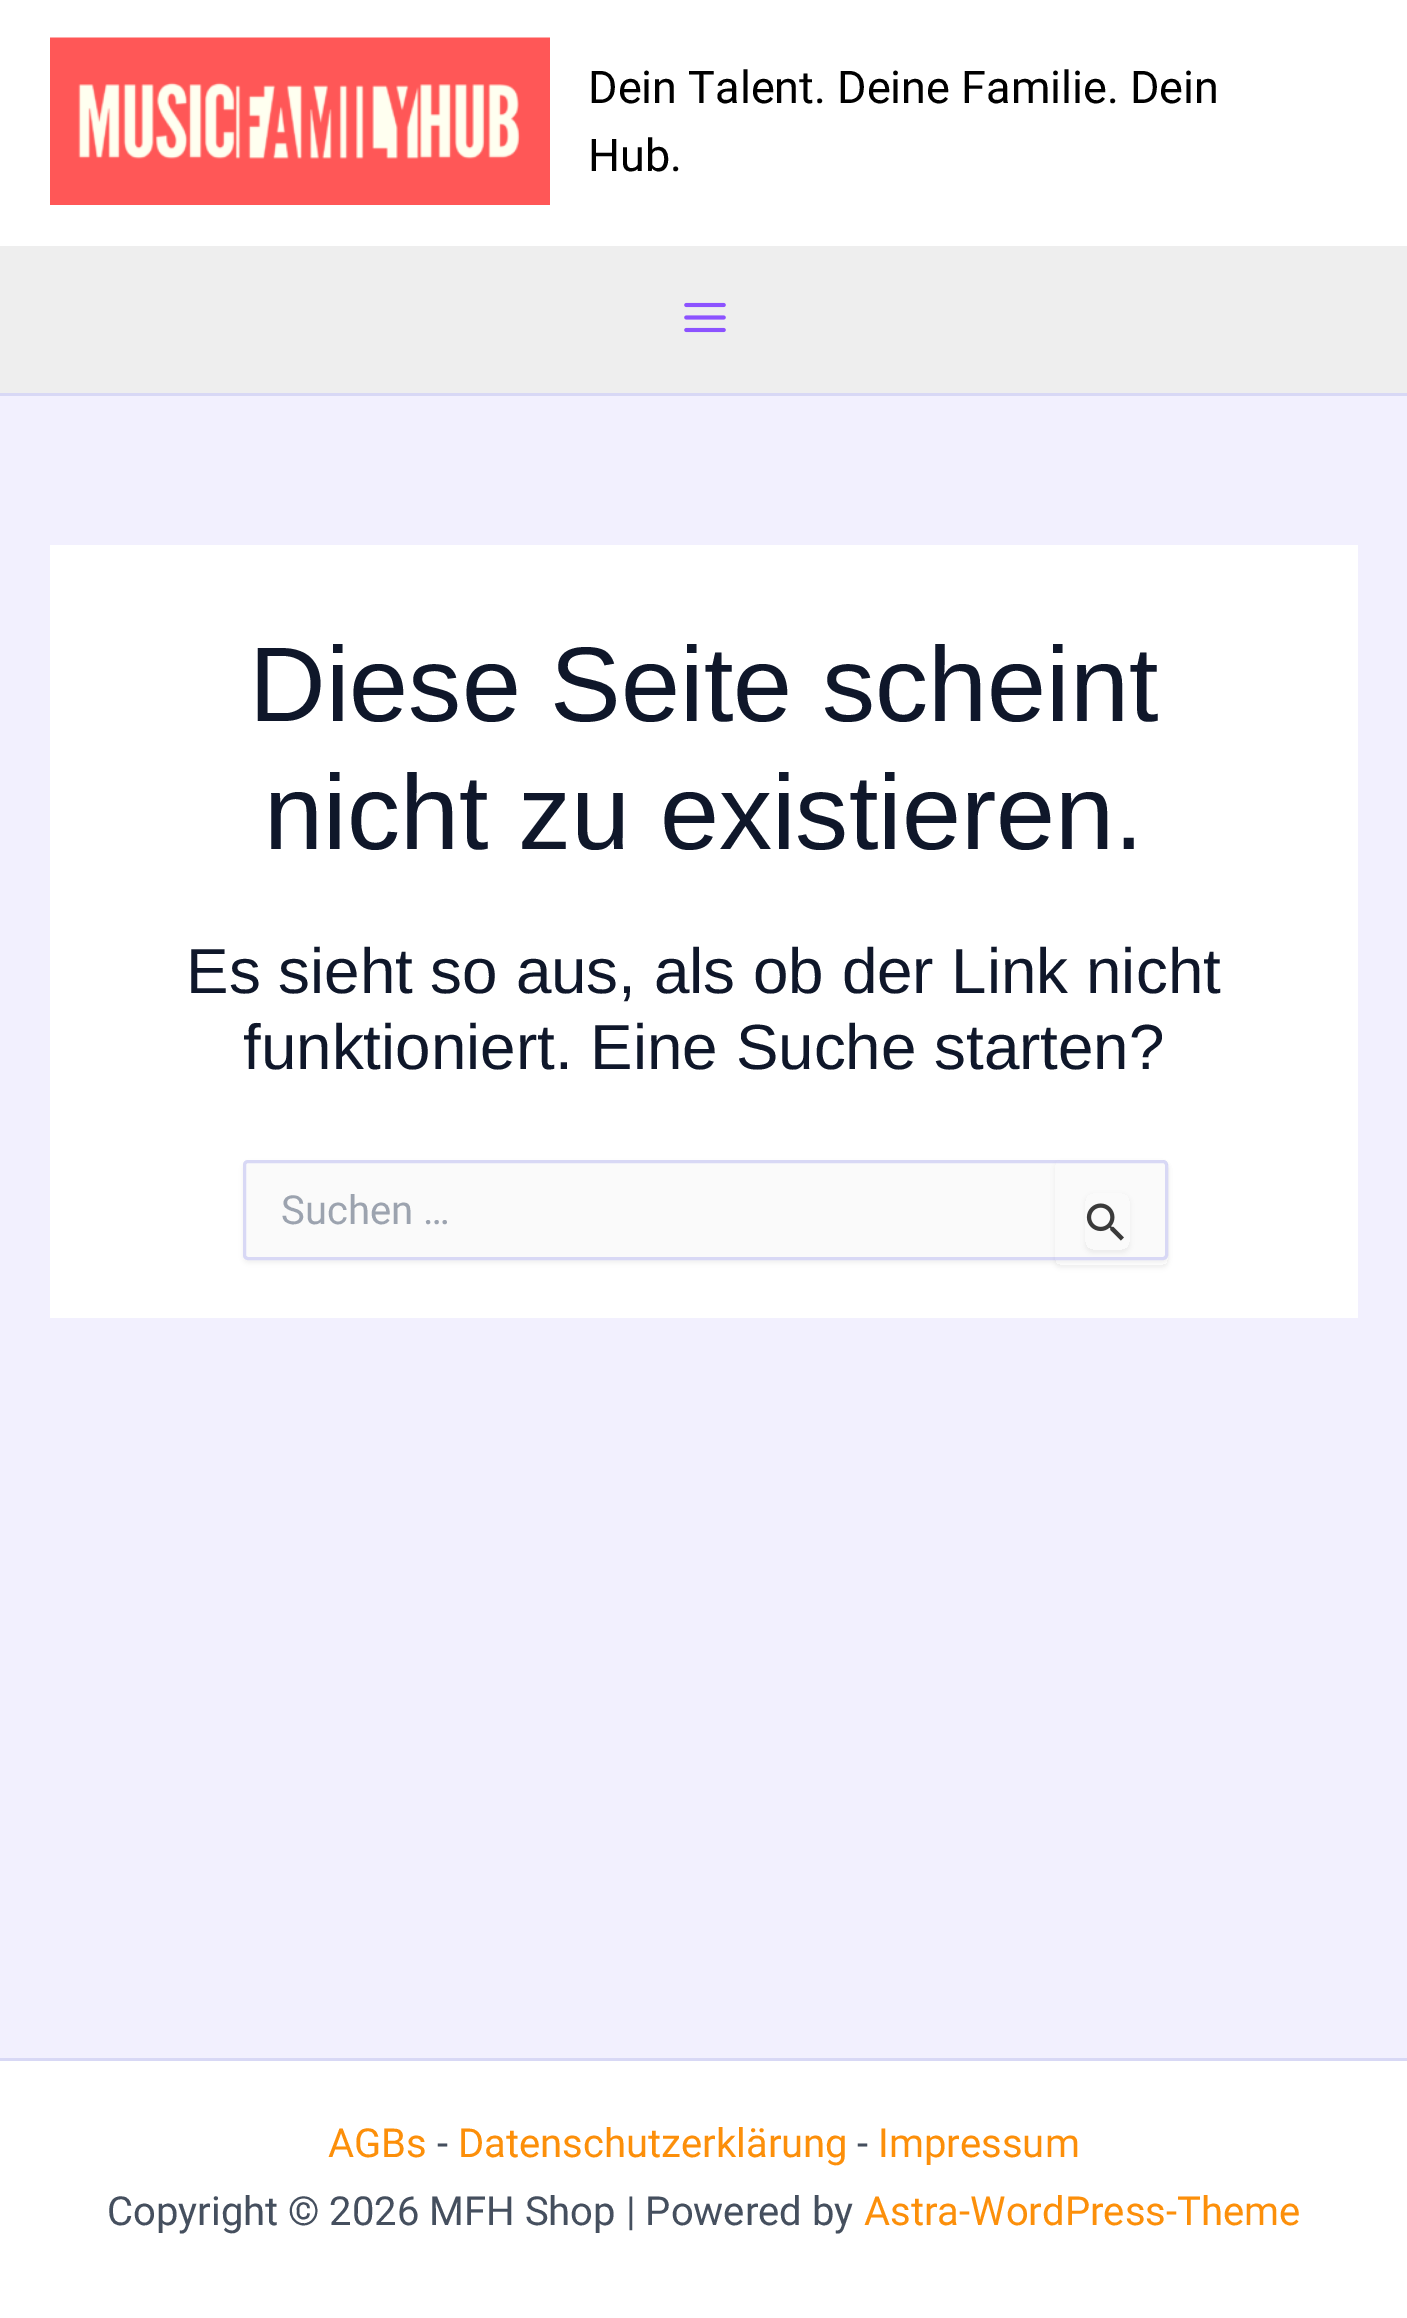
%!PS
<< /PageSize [1407 2318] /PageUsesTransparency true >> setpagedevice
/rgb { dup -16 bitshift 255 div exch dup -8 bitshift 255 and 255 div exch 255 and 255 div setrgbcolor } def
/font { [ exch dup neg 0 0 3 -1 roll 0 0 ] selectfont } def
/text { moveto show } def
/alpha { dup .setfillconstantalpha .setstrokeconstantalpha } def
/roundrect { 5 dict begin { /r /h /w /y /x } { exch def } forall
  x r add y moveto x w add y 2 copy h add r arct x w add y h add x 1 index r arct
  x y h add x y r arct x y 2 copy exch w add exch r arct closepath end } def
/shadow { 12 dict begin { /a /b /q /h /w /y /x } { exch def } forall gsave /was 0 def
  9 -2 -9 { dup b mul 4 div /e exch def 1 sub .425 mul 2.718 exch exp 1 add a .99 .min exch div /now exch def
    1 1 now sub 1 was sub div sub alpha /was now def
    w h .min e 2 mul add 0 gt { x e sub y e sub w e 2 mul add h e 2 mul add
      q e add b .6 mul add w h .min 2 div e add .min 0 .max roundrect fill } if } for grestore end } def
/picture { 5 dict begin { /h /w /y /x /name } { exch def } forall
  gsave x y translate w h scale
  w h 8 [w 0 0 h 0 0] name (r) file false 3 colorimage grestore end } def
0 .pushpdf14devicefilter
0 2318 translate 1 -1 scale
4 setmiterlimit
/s1 { /Roboto-Regular 45 font 16#000000 rgb } def
/s2 { /LiberationSans-Regular 106.25 font 16#0F172A rgb } def
/s3 { /LiberationSans-Regular 63.75 font 16#0F172A rgb } def
/s4 { /Roboto-Regular 40 font 16#9CA3AF rgb } def
/s5 { /Roboto-Regular 40 font 16#FC8F0A rgb } def
/s6 { /Roboto-Regular 40 font 16#454F5E rgb } def
16#F2F0FE rgb
0 0 1407 2318 rectfill
16#FFFFFF rgb
0 0 1407 246 rectfill
(pic1.raw) 50 37 500 168 picture
s1
(Dein Talent. Deine Familie. Dein) 588 103 text
(Hub.) 588 171 text
16#EEEEEE rgb
0 246 1407 147 rectfill
16#D8D8F5 rgb
0 393 1407 3 rectfill
(pic2.raw) 684 302 42 31 picture
16#FFFFFF rgb
50 545 1308 773 rectfill
s2
(Diese Seite scheint) 249 721 text
(nicht zu existieren.) 264 849 text
s3
(Es sieht so aus, als ob der Link nicht) 186 993 text
(funktioniert. Eine Suche starten?) 243 1069 text
16#000000 rgb
243 1163 925 100 5 2.5 0.05 shadow
16#FAFAFA rgb
244.5 1161.5 922 97 3.5 roundrect gsave fill grestore
16#D8D8F5 rgb
3 setlinewidth
stroke
s4
(Suchen …) 281 1224 text
gsave
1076 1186 moveto 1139 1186 lineto 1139 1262 lineto 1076 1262 lineto closepath 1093 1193 moveto 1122 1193 lineto 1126.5 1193 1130 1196.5 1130 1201 curveto 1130 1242 lineto 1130 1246.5 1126.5 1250 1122 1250 curveto 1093 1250 lineto 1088.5 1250 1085 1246.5 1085 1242 curveto 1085 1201 lineto 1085 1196.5 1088.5 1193 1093 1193 curveto closepath eoclip newpath
16#000000 rgb
1085 1195 45 58 8 2.5 0.05 shadow
grestore
(pic3.raw) 1086 1203 38 38 picture
gsave
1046 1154 moveto 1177 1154 lineto 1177 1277 lineto 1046 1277 lineto closepath 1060 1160 moveto 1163 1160 lineto 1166 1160 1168 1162 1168 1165 curveto 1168 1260 lineto 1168 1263 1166 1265 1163 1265 curveto 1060 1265 lineto 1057 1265 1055 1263 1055 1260 curveto 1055 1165 lineto 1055 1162 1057 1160 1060 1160 curveto closepath eoclip newpath
16#000000 rgb
1055 1163 113 105 5 2.5 0.05 shadow
grestore
16#FFFFFF rgb
0 2061 1407 257 rectfill
16#D8D8F5 rgb
0 2058 1407 3 rectfill
s5
(AGBs) 328 2157 text
s6
(-) 437 2157 text
s5
(Datenschutzerklärung) 458 2157 text
s6
(-) 857 2157 text
s5
(Impressum) 878 2157 text
s6
(Copyright © 2026 MFH Shop | Powered by) 107 2225 text
s5
(Astra-WordPress-Theme) 864 2225 text
.poppdf14devicefilter showpage
